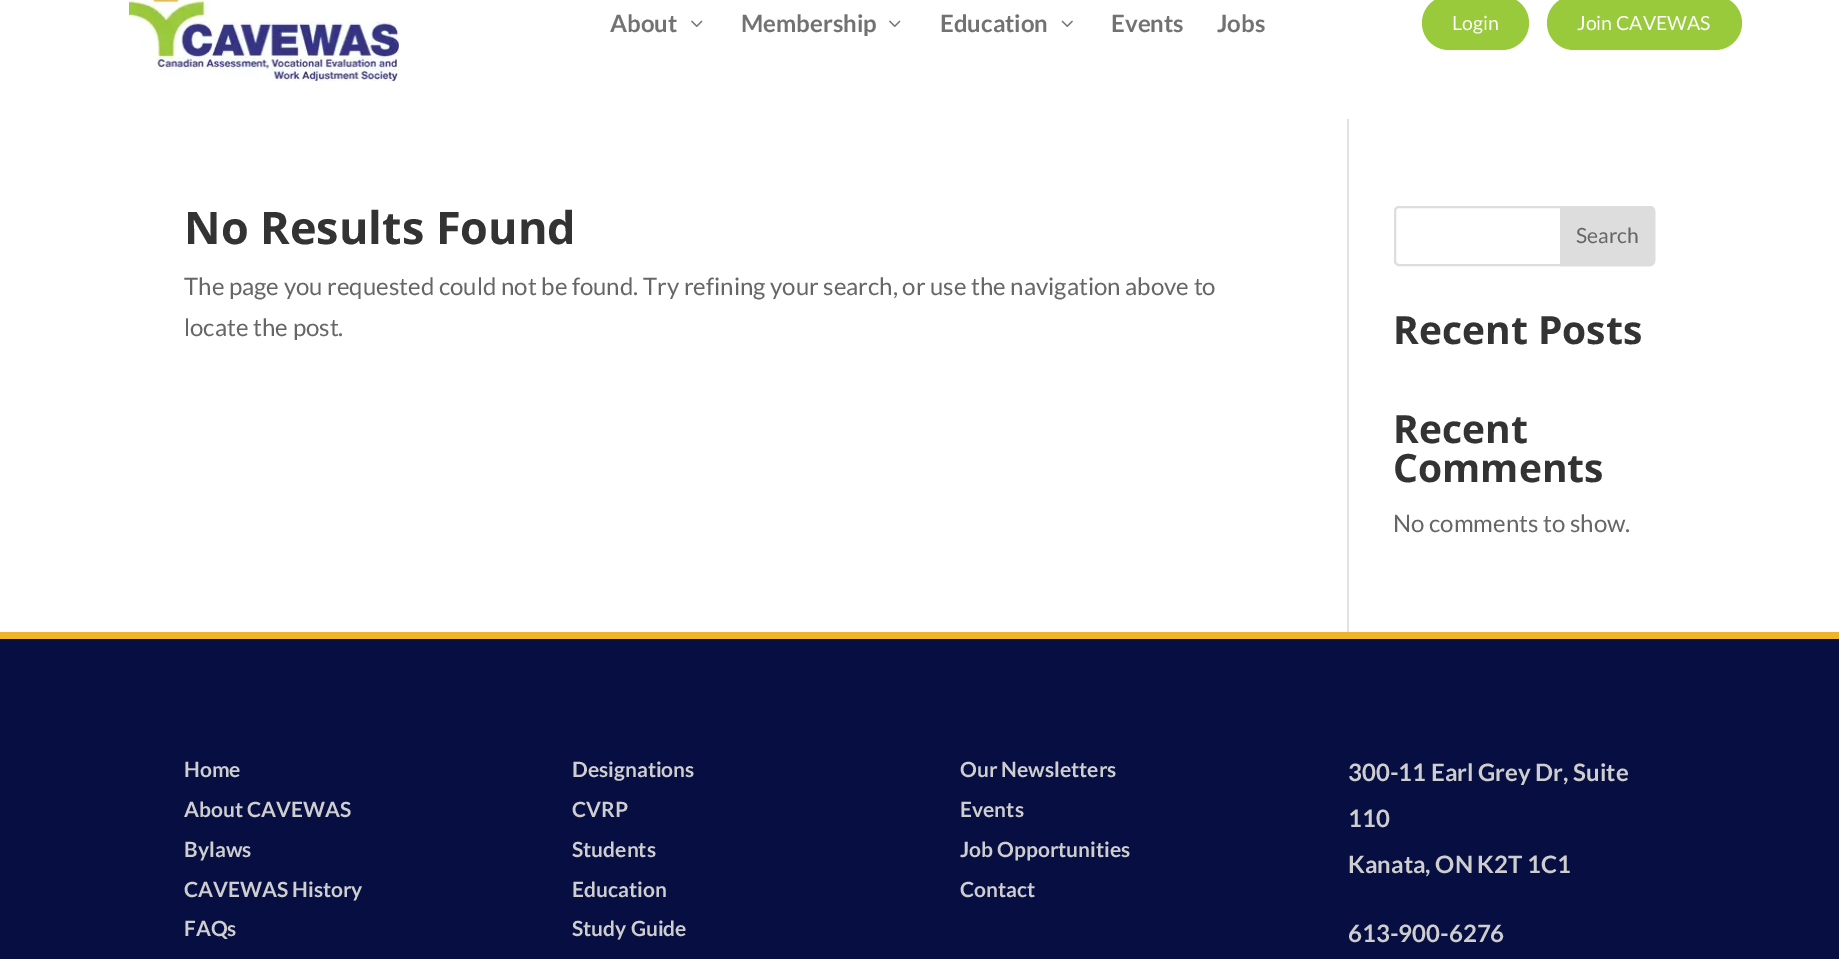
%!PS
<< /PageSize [1839 959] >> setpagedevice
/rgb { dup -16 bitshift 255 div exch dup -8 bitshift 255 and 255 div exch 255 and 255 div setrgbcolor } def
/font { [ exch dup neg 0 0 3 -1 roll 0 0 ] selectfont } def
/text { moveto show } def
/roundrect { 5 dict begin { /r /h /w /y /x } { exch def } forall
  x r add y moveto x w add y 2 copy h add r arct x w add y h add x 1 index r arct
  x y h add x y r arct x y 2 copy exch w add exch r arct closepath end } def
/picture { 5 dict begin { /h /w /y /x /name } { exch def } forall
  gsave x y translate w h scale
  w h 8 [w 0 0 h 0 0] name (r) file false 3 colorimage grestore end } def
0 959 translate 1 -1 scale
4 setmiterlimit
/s1 { /Lato-Bold 24 font 16#727272 rgb } def
/s2 { /Lato-Regular 19.5 font 16#FFFFFF rgb } def
/s3 { /OpenSans-Bold 45 font 16#333333 rgb } def
/s4 { /Lato-Regular 24 font 16#666666 rgb } def
/s5 { /Lato-Regular 21 font 16#666666 rgb } def
/s6 { /OpenSans-Bold 39 font 16#333333 rgb } def
/s7 { /Lato-Bold 21 font 16#CECECE rgb } def
/s8 { /Lato-Bold 24 font 16#CECECE rgb } def
16#FFFFFF rgb
0 0 1839 959 rectfill
(pic1.raw) 129 0 270 81 picture
s1
(About) 610 32 text
(pic2.raw) 691 20 12 7 picture
(Membership) 741 32 text
(pic2.raw) 889 20 12 7 picture
(Education) 940 32 text
(pic3.raw) 1061 20 12 7 picture
(Events) 1111 32 text
(Jobs) 1217 32 text
16#99CA3B rgb
1422 -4 107 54 27 roundrect fill
s2
(Login) 1452 30 text
16#99CA3B rgb
1547 -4 195 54 27 roundrect fill
s2
(Join CAVEWAS) 1577 30 text
16#E2E2E2 rgb
1347 119 2 513 rectfill
s3
(No Results Found) 184 244 text
s4
(The page you requested could not be found. Try refining your search, or use the navigation above to) 184 295 text
(locate the post.) 184 336 text
16#DDDDDD rgb
2 setlinewidth
1395 207 259 58 4 roundrect stroke
1561 207 moveto 1650 207 lineto 1652 207 1654 209 1654 211 curveto 1654 261 lineto 1654 263 1652 265 1650 265 curveto 1561 265 lineto closepath gsave fill grestore
stroke
s5
(Search) 1576 243 text
s6
(Recent Posts) 1393 344 text
(Recent) 1393 443 text
(Comments) 1393 482 text
s4
(No comments to show.) 1393 532 text
16#070F42 rgb
0 639 1839 320 rectfill
16#EFB42A rgb
0 632 1839 7 rectfill
s7
(Home) 184 777 text
(About CAVEWAS) 184 817 text
(Bylaws) 184 857 text
(CAVEWAS History) 184 897 text
(FAQs) 184 936 text
(Designations) 572 777 text
(CVRP) 572 817 text
(Students) 572 857 text
(Education) 572 897 text
(Study Guide) 572 936 text
(Our Newsletters) 960 777 text
(Events) 960 817 text
(Job Opportunities) 960 857 text
(Contact) 960 897 text
s8
(300-11 Earl Grey Dr, Suite) 1348 781 text
(110) 1348 827 text
(Kanata, ON K2T 1C1) 1348 873 text
(613-900-6276) 1348 942 text
showpage
